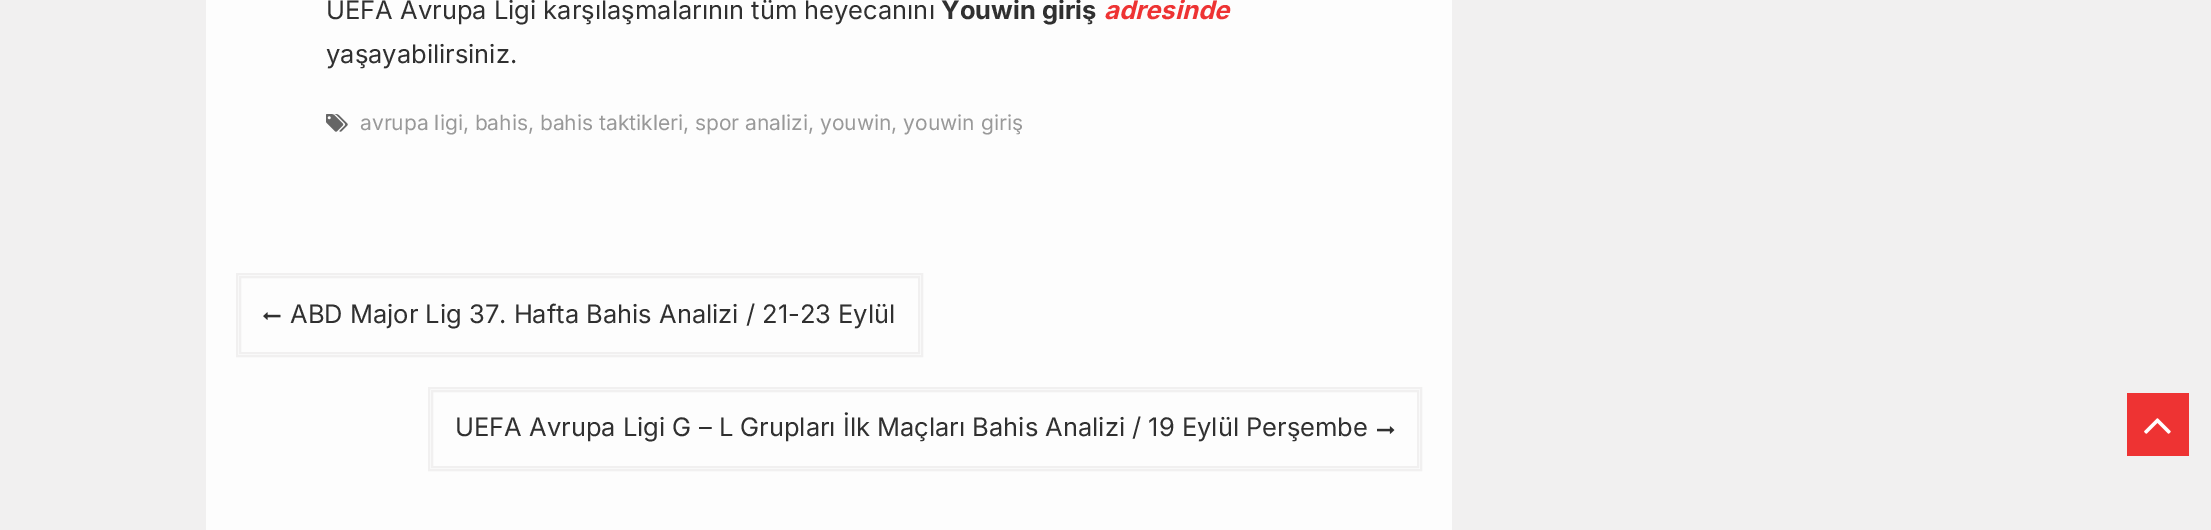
%!PS
<< /PageSize [2211 530] >> setpagedevice
/rgb { dup -16 bitshift 255 div exch dup -8 bitshift 255 and 255 div exch 255 and 255 div setrgbcolor } def
/font { [ exch dup neg 0 0 3 -1 roll 0 0 ] selectfont } def
/text { moveto show } def
/picture { 5 dict begin { /h /w /y /x /name } { exch def } forall
  gsave x y translate w h scale
  w h 8 [w 0 0 h 0 0] name (r) file false 3 colorimage grestore end } def
0 530 translate 1 -1 scale
4 setmiterlimit
/s1 { /Inter-Regular 25.5 font 16#303030 rgb } def
/s2 { /Inter-Bold 25.5 font 16#303030 rgb } def
/s3 { /Inter-BoldItalic 25.5 font 16#EE3333 rgb } def
/s4 { /Inter-Regular 21 font 16#999999 rgb } def
16#F1F0F0 rgb
0 0 2211 530 rectfill
16#FDFDFD rgb
206 0 1246 530 rectfill
s1
(UEFA Avrupa Ligi karşılaşmalarının tüm heyecanını) 326 19 text
s2
(Youwin giriş) 941 19 text
s3
(adresinde) 1104 19 text
s1
(yaşayabilirsiniz.) 326 63 text
(pic1.raw) 326 114 22 18 picture
s4
(avrupa ligi, bahis, bahis taktikleri, spor analizi, youwin, youwin giriş) 360 130 text
16#F1F0F0 rgb
2 setlinewidth
237 274 685 82 rectstroke
240 277 679 76 rectstroke
(pic2.raw) 263 312 18 8 picture
s1
(ABD Major Lig 37. Hafta Bahis Analizi / 21-23 Eylül) 290 323 text
16#F1F0F0 rgb
429 388 992 82 rectstroke
432 391 986 76 rectstroke
s1
(UEFA Avrupa Ligi G – L Grupları İlk Maçları Bahis Analizi / 19 Eylül Perşembe) 455 436 text
(pic3.raw) 1377 426 18 8 picture
16#EE3333 rgb
2127 393 62 63 rectfill
(pic4.raw) 2144 418 27 16 picture
showpage
